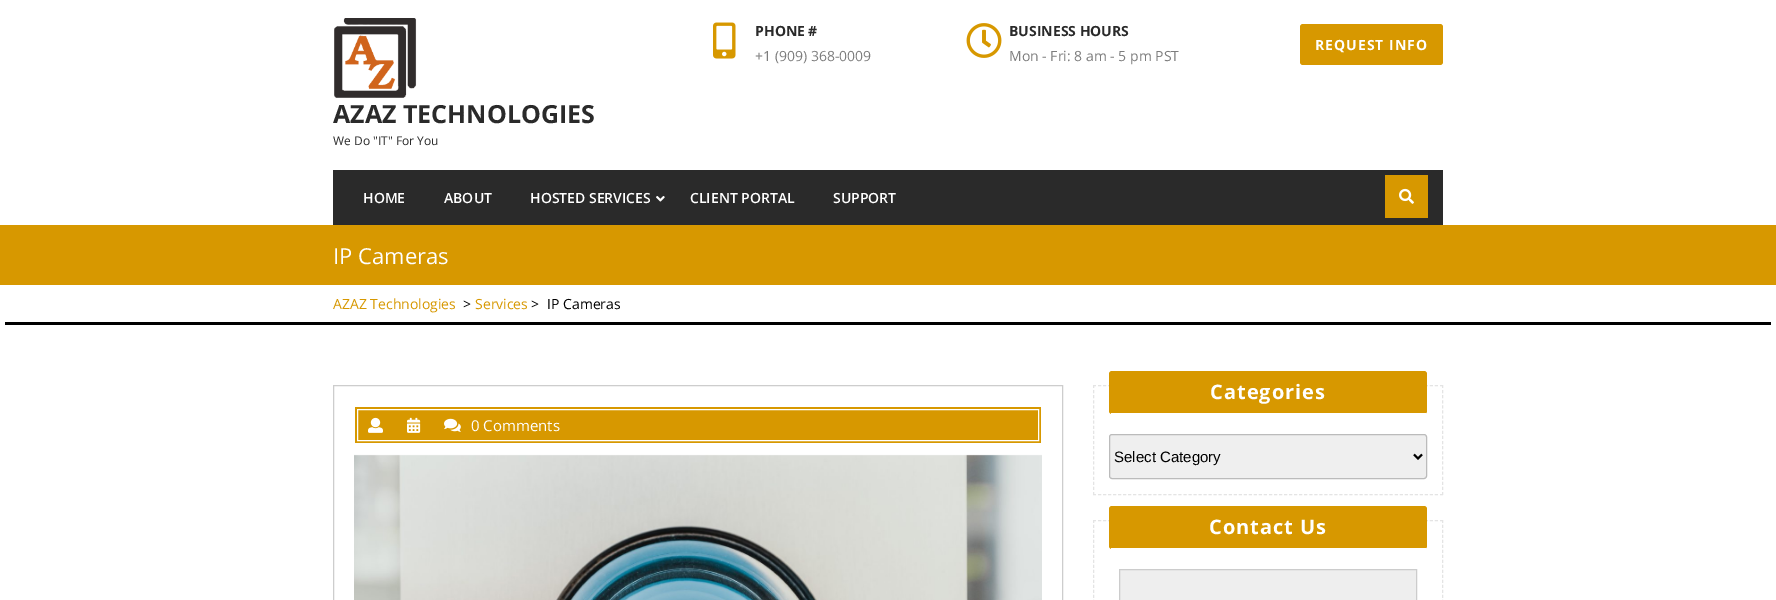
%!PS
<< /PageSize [1776 600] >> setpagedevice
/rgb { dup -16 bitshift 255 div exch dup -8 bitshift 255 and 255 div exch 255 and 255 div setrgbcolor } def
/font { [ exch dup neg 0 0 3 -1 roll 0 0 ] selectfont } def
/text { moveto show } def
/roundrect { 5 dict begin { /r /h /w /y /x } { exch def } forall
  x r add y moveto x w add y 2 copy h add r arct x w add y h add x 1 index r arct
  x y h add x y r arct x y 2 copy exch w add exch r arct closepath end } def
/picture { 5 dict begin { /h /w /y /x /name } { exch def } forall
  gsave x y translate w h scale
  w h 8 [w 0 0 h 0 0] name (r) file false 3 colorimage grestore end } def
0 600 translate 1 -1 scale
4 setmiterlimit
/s1 { /OpenSans-Bold 14 font 16#2A2A2A rgb } def
/s2 { /OpenSans-Regular 14 font 16#7D7D7D rgb } def
/s3 { /OpenSans-Bold 25 font 16#2A2A2A rgb } def
/s4 { /OpenSans-Regular 12 font 16#2A2A2A rgb } def
/s5 { /OpenSans-SemiBold 14 font 16#FFFFFF rgb } def
/s6 { /OpenSans-Regular 22 font 16#FFFFFF rgb } def
/s7 { /OpenSans-Regular 14 font 16#D79800 rgb } def
/s8 { /OpenSans-Regular 14 font 16#000000 rgb } def
/s9 { /OpenSans-Regular 15 font 16#FFFFFF rgb } def
/s10 { /LiberationSans-Regular 15 font 16#000000 rgb } def
16#FFFFFF rgb
0 0 1776 600 rectfill
(pic1.raw) 713 22 23 37 picture
s1
(PHONE #) 755 36 text
s2
(+1 \(909\) 368-0009) 755 61 text
(pic2.raw) 966 23 36 35 picture
s1
(BUSINESS HOURS) 1009 36 text
s2
(Mon - Fri: 8 am - 5 pm PST) 1009 61 text
16#D79800 rgb
1300 24 143 41 3 roundrect fill
/OpenSans-Bold 14 font
16#FFFFFF rgb
1315 50 moveto 1 0 (REQUEST INFO) ashow
(pic3.raw) 334 18 83 80 picture
s3
(AZAZ TECHNOLOGIES) 333 123 text
s4
(We Do "IT" For You) 333 145 text
333 170 1110 55 rectfill
s5
(HOME) 363 203 text
(ABOUT) 444 203 text
(HOSTED SERVICES) 530 203 text
(pic4.raw) 656 196 9 6 picture
(CLIENT PORTAL) 690 203 text
(SUPPORT) 833 203 text
16#D79800 rgb
1385 175 43 43 rectfill
(pic5.raw) 1399 188 15 16 picture
0 225 1776 60 rectfill
s6
(IP Cameras) 333 264 text
16#000000 rgb
5 322 1766 3 rectfill
s7
(AZAZ Technologies) 333 309 text
s8
(>) 463 309 text
s7
(Services) 475 309 text
s8
(>) 531 309 text
(IP Cameras) 547 309 text
16#CDCDCD rgb
333.5 385.5 729 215 rectstroke
16#D79800 rgb
355 407 686 36 rectfill
16#FFFFFF rgb
357.5 409.5 681 31 rectstroke
(pic6.raw) 368 417 15 16 picture
(pic7.raw) 407 417 14 16 picture
(pic8.raw) 444 418 17 14 picture
s9
(0 Comments) 471 431 text
(pic9.raw) 354 454 688 146 picture
16#E4E4E4 rgb
[3 2.03] 0 setdash
1093 385.5 moveto 1443 385.5 lineto stroke
[3 2.1] 0 setdash
1442.5 385 moveto 1442.5 495 lineto stroke
[3 2.03] 0 setdash
1093 494.5 moveto 1443 494.5 lineto stroke
[3 2.1] 0 setdash
1093.5 385 moveto 1093.5 495 lineto stroke
16#D79800 rgb
1109 371 318 43 3 roundrect fill
16#FFFFFF rgb
1111 413 315 1 rectfill
/OpenSans-Bold 20 font
1210 399 moveto 1 0 (Categories) ashow
16#EFEFEF rgb
1109.5 434.5 317 44 2.5 roundrect gsave fill grestore
16#BBBBBB rgb
[] 0 setdash
stroke
16#000000 rgb
2 setlinewidth
1414 454.5 moveto 1418 458.5 lineto 1422 454.5 lineto stroke
s10
(Select Category) 1114 462 text
16#E4E4E4 rgb
1 setlinewidth
[3 2.03] 0 setdash
1093 520.5 moveto 1443 520.5 lineto stroke
[3 1.99] 0 setdash
1442.5 520 moveto 1442.5 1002 lineto stroke
1093.5 520 moveto 1093.5 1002 lineto stroke
16#D79800 rgb
1109 506 318 43 3 roundrect fill
16#FFFFFF rgb
1111 548 315 1 rectfill
/OpenSans-Bold 20 font
1209 534 moveto 1 0 (Contact Us) ashow
16#EEEEEE rgb
1119.5 569.5 moveto 1416.5 569.5 lineto 1416.5 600.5 lineto 1119.5 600.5 lineto closepath gsave fill grestore
16#CCCCCC rgb
[] 0 setdash
stroke
showpage
